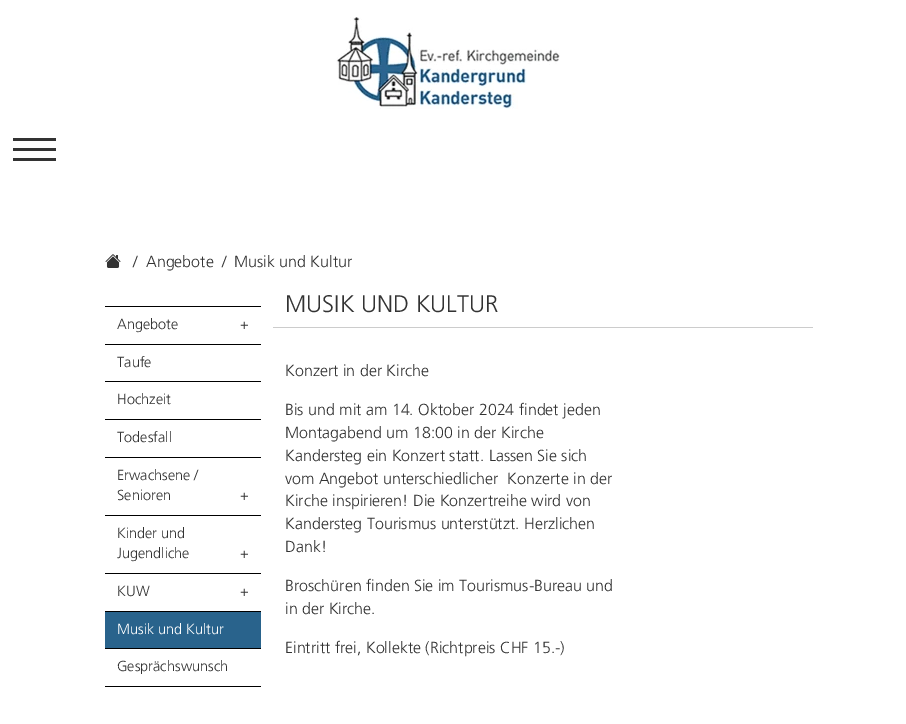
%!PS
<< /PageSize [906 724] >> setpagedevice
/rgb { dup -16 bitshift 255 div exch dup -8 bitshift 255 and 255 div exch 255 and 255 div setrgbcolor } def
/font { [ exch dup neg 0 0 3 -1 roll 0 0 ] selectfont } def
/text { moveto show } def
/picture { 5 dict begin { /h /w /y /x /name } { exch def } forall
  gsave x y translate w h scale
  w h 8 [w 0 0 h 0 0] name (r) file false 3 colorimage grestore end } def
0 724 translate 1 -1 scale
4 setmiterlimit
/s1 { /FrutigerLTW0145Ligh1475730-Light 16 font 16#333333 rgb } def
/s2 { /FrutigerLTW0145Ligh1475730-Light 14.5 font 16#333333 rgb } def
/s3 { /FrutigerLTW0145Ligh1475730-Light 14.5 font 16#FFFFFF rgb } def
/s4 { /FrutigerLTW0145Ligh1475730-Light 24 font 16#333333 rgb } def
16#FFFFFF rgb
0 0 906 724 rectfill
(pic1.raw) 336 17 224 92 picture
16#333333 rgb
13 148 43 3 rectfill
13 138 43 3 rectfill
13 158 43 3 rectfill
(pic2.raw) 105 254 16 14 picture
s1
(/) 133 267 text
(Angebote) 146 267 text
(/) 222 267 text
(Musik und Kultur) 234 267 text
16#000000 rgb
105 686 156 1 rectfill
105 306 156 1 rectfill
s2
(Angebote) 117 329 text
(+) 240 329 text
16#000000 rgb
105 344 156 1 rectfill
s2
(Taufe) 117 367 text
16#000000 rgb
105 381 156 1 rectfill
s2
(Hochzeit) 117 404 text
16#000000 rgb
105 419 156 1 rectfill
s2
(Todesfall) 117 442 text
16#000000 rgb
105 457 156 1 rectfill
s2
(Erwachsene /) 117 480 text
(Senioren) 117 500 text
(+) 240 500 text
16#000000 rgb
105 515 156 1 rectfill
s2
(Kinder und) 117 538 text
(Jugendliche) 117 558 text
(+) 240 558 text
16#000000 rgb
105 573 156 1 rectfill
s2
(KUW) 117 596 text
(+) 240 596 text
16#000000 rgb
105 611 156 1 rectfill
16#29638C rgb
105 612 156 36 rectfill
s3
(Musik und Kultur) 117 634 text
16#000000 rgb
105 648 156 1 rectfill
s2
(Gesprächswunsch) 117 671 text
s4
(MUSIK UND KULTUR) 285 312 text
16#CCCCCC rgb
273 327 540 1 rectfill
s1
(Konzert in der Kirche) 285 376 text
(Bis und mit am 14. Oktober 2024 findet jeden) 285 415 text
(Montagabend um 18:00 in der Kirche) 285 438 text
(Kandersteg ein Konzert statt. Lassen Sie sich) 285 461 text
(vom Angebot unterschiedlicher  Konzerte in der) 285 484 text
(Kirche inspirieren! Die Konzertreihe wird von) 285 506 text
(Kandersteg Tourismus unterstützt. Herzlichen) 285 529 text
(Dank!) 285 552 text
(Broschüren finden Sie im Tourismus-Bureau und) 285 591 text
(in der Kirche.) 285 614 text
(Eintritt frei, Kollekte \(Richtpreis CHF 15.-\)) 285 653 text
showpage
